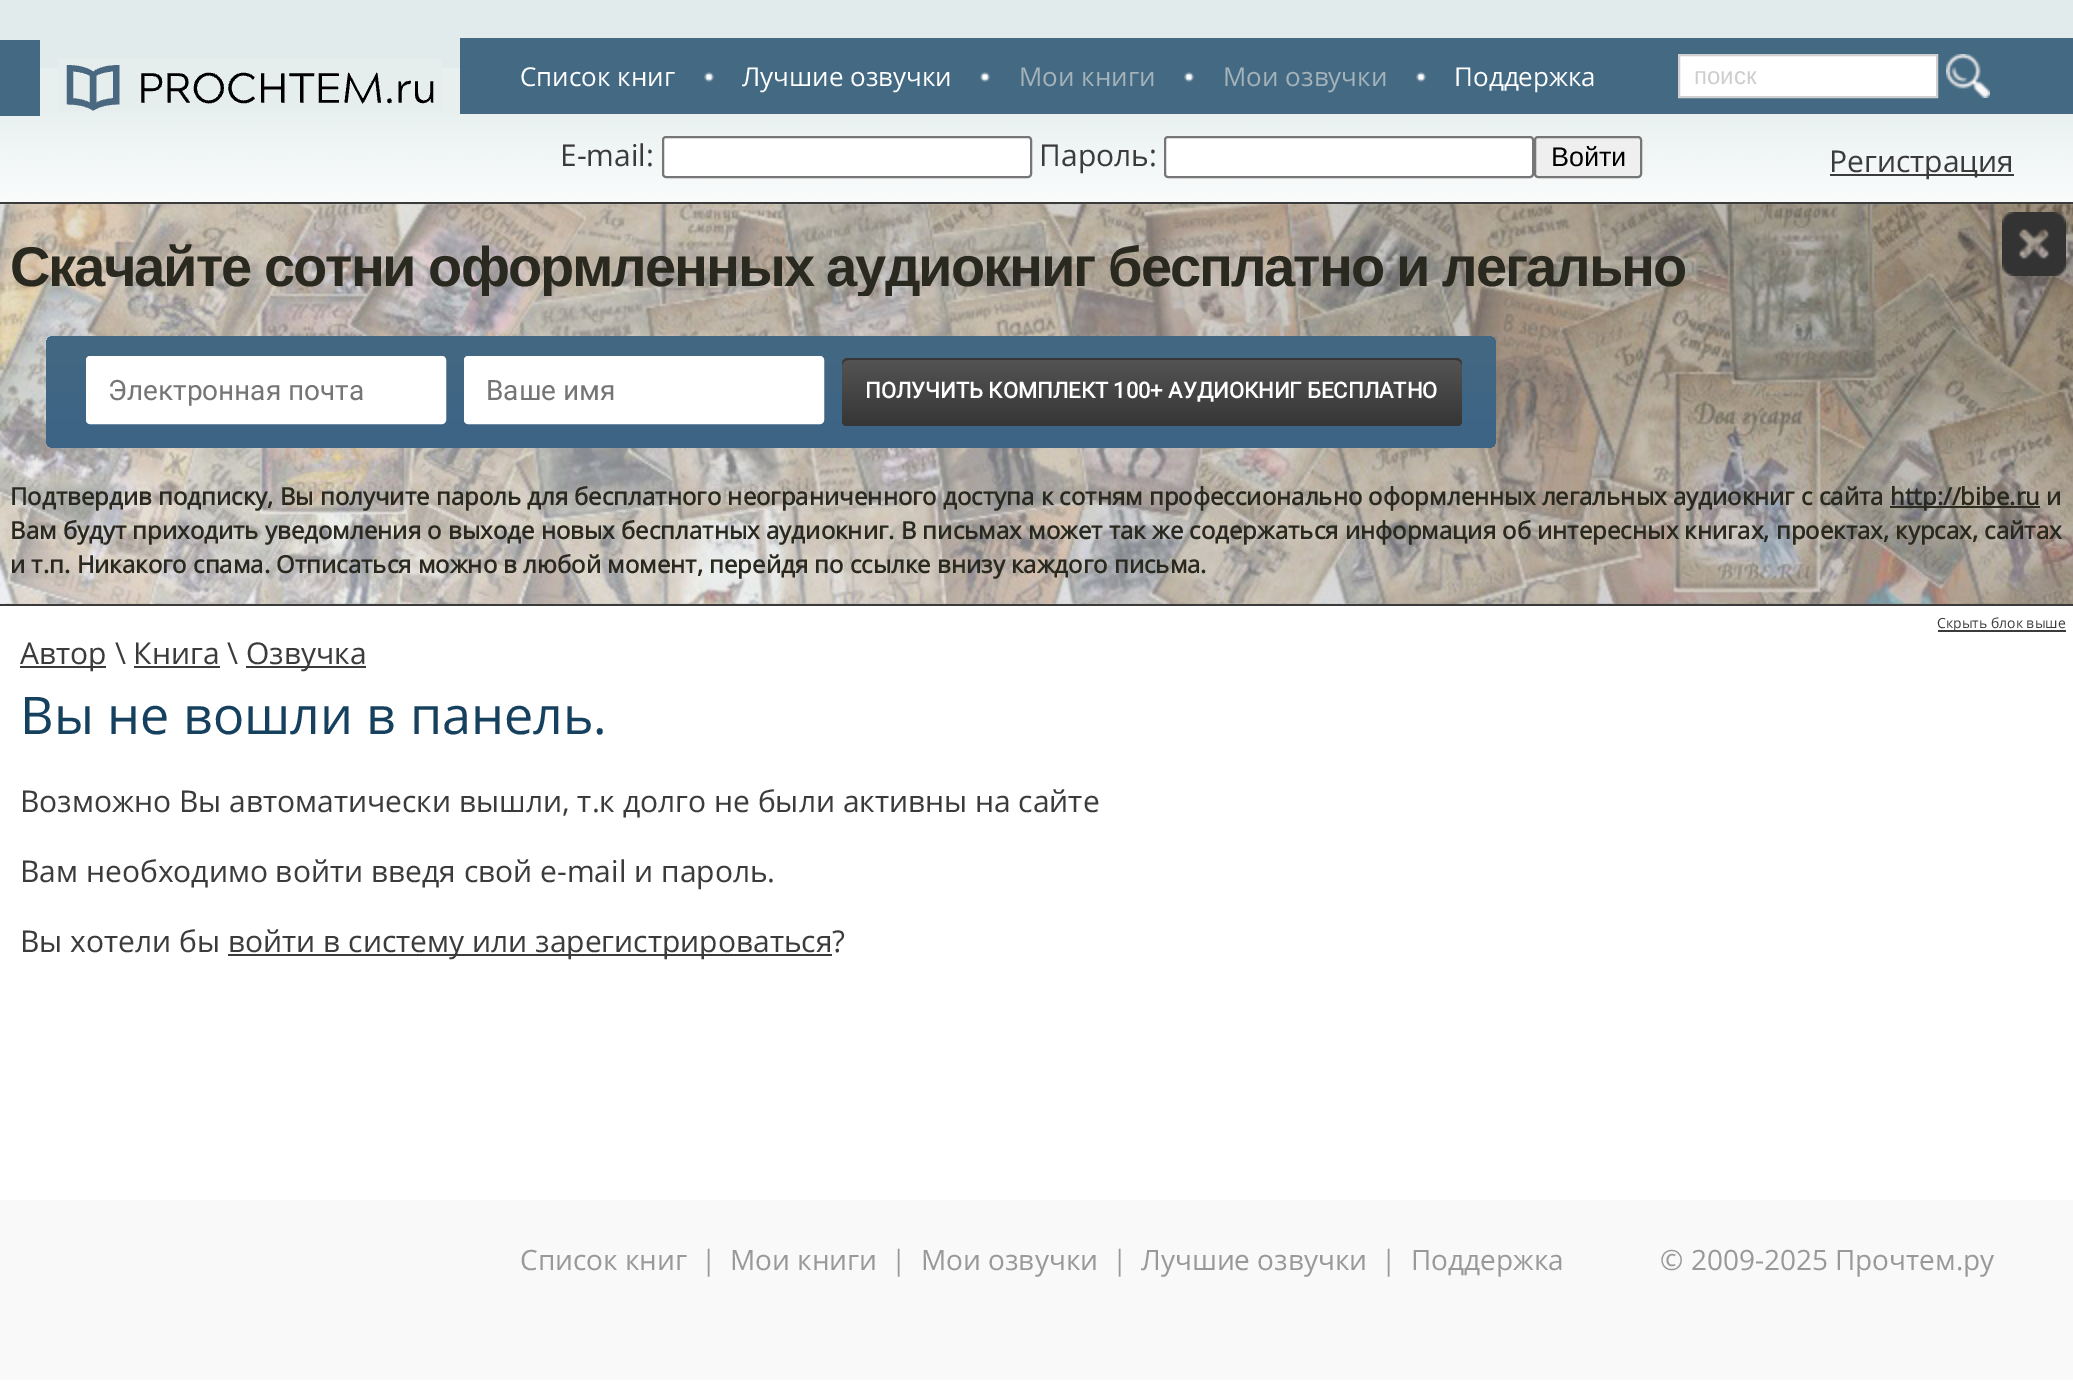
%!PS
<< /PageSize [2073 1395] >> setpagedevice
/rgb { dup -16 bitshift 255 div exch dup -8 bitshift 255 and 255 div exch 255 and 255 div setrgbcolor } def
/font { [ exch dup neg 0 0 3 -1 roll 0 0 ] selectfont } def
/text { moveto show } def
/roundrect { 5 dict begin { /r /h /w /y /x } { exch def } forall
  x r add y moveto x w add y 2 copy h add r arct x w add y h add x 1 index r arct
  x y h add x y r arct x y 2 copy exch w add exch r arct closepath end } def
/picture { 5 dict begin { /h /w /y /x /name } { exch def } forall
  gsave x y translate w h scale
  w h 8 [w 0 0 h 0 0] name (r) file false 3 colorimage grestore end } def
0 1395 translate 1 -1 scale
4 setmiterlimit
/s1 { /OpenSans-Regular 26 font 16#FFFFFF rgb } def
/s2 { /OpenSans-Regular 26 font 16#A4B2B9 rgb } def
/s3 { /LiberationSans-Regular 24 font 16#CDCDCD rgb } def
/s4 { /OpenSans-Regular 30 font 16#3B3B3B rgb } def
/s5 { /LiberationSans-Regular 27 font 16#000000 rgb } def
/s6 { /Roboto-Regular 28 font 16#757575 rgb } def
/s7 { /Roboto-Bold 22 font 16#FFFFFF rgb } def
/s8 { /OpenSans-Bold 24 font 16#29291F rgb } def
/s9 { /OpenSans-Regular 14 font 16#3B3B3B rgb } def
/s10 { /OpenSans-Regular 52 font 16#15405E rgb } def
/s11 { /OpenSans-Regular 28 font 16#999999 rgb } def
16#FFFFFF rgb
0 0 2073 1395 rectfill
(pic1.raw) 0 116 460 86 picture
16#E7EFEF rgb
40 68 420 48 rectfill
16#E1EBEB rgb
0 0 460 68 rectfill
16#436983 rgb
0 40 40 76 rectfill
(pic2.raw) 58 58 384 53 picture
(pic3.raw) 460 0 1613 202 picture
460 38 1613 76 rectfill
s1
(Список книг) 520 86 text
(pic4.raw) 704 72 10 10 picture
(Лучшие озвучки) 742 86 text
(pic4.raw) 980 72 10 10 picture
s2
(Мои книги) 1019 86 text
(pic4.raw) 1184 72 10 10 picture
(Мои озвучки) 1223 86 text
(pic4.raw) 1416 72 10 10 picture
s1
(Поддержка) 1454 86 text
1679 55 moveto 1937 55 lineto 1937 97 lineto 1679 97 lineto closepath gsave fill grestore
16#D0D0D0 rgb
2 setlinewidth
stroke
s3
(поиск) 1694 84 text
(pic5.raw) 1946 54 44 44 picture
s4
(E-mail:) 560 166 text
16#FFFFFF rgb
663 137 368 40 3 roundrect gsave fill grestore
16#767676 rgb
stroke
s4
(Пароль:) 1039 166 text
16#FFFFFF rgb
1165 137 368 40 3 roundrect gsave fill grestore
16#767676 rgb
stroke
16#EFEFEF rgb
1535 137 106 40 3 roundrect gsave fill grestore
16#767676 rgb
stroke
s5
(Войти) 1551 166 text
16#3B3B3B rgb
1830 174 184 2 rectfill
s4
(Регистрация) 1829 172 text
(pic6.raw) 0 204 2073 400 picture
16#3A3A3A rgb
0 202 2073 2 rectfill
0 604 2073 2 rectfill
gsave
0 204 2002 92 rectclip
/LiberationSans-Bold 56 font
16#29291F rgb
10 286 moveto -2 0 (Скачайте сотни оформленных аудиокниг бесплатно и) ashow
grestore
/LiberationSans-Bold 56 font
16#29291F rgb
1442 286 moveto -2 0 (легально) ashow
(pic7.raw) 2002 212 64 64 picture
gsave 46 336 1450 112 8 roundrect clip newpath
<< /ShadingType 2 /ColorSpace /DeviceRGB /Coords [771 336 771 448] /Extend [true true] /Function << /FunctionType 2 /Domain [0 1] /C0 [0.263 0.408 0.514] /C1 [0.239 0.392 0.525] /N 1 >> >> shfill grestore
16#FFFFFF rgb
87 357 358 66 3 roundrect gsave fill grestore
stroke
s6
(Электронная почта) 108 400 text
16#FFFFFF rgb
465 357 358 66 3 roundrect gsave fill grestore
stroke
s6
(Ваше имя) 486 400 text
gsave 842 358 620 68 6 roundrect clip newpath
<< /ShadingType 2 /ColorSpace /DeviceRGB /Coords [1152 358 1152 426] /Extend [true true] /Function << /FunctionType 2 /Domain [0 1] /C0 [0.333 0.329 0.333] /C1 [0.216 0.212 0.216] /N 1 >> >> shfill grestore
16#373637 rgb
848 360 moveto 1456 360 lineto 1459 360 1462 363 1462 366 curveto 1462 364 lineto 1462 361 1459 358 1456 358 curveto 848 358 lineto 845 358 842 361 842 364 curveto 842 366 lineto 842 363 845 360 848 360 curveto closepath fill
s7
(ПОЛУЧИТЬ КОМПЛЕКТ 100+ АУДИОКНИГ БЕСПЛАТНО) 865 398 text
s8
(Подтвердив подписку, Вы получите пароль для бесплатного неограниченного доступа к сотням профессионально оформленных легальных аудиокниг с сайта) 10 505 text
16#2C2C20 rgb
1890 506 150 2 rectfill
s8
(http://bibe.ru) 1890 505 text
(и) 2046 505 text
(Вам будут приходить уведомления о выходе новых бесплатных аудиокниг. В письмах может так же содержаться информация об интересных книгах, проектах, курсах, сайтах) 10 539 text
(и т.п. Никакого спама. Отписаться можно в любой момент, перейдя по ссылке внизу каждого письма.) 10 573 text
16#3B3B3B rgb
1938 630 128 2 rectfill
s9
(Скрыть блок выше) 1937 628 text
20 666 86 2 rectfill
s4
(Автор \\ Книга \\) 20 664 text
246 666 120 2 rectfill
(Озвучка) 246 664 text
134 666 86 2 rectfill
s10
(Вы не вошли в панель.) 20 734 text
s4
(Возможно Вы автоматически вышли, т.к долго не были активны на сайте) 20 812 text
(Вам необходимо войти введя свой e-mail и пароль.) 20 882 text
(Вы хотели бы) 20 952 text
228 954 604 2 rectfill
(войти в систему или зарегистрироваться?) 228 952 text
16#F9F9F9 rgb
0 1200 2073 180 rectfill
s11
(Список книг) 520 1270 text
(|) 701 1270 text
(Мои книги) 730 1270 text
(|) 891 1270 text
(Мои озвучки) 921 1270 text
(|) 1112 1270 text
(Лучшие озвучки) 1141 1270 text
(|) 1381 1270 text
(Поддержка) 1411 1270 text
(© 2009-2025 Прочтем.ру) 1660 1270 text
showpage
